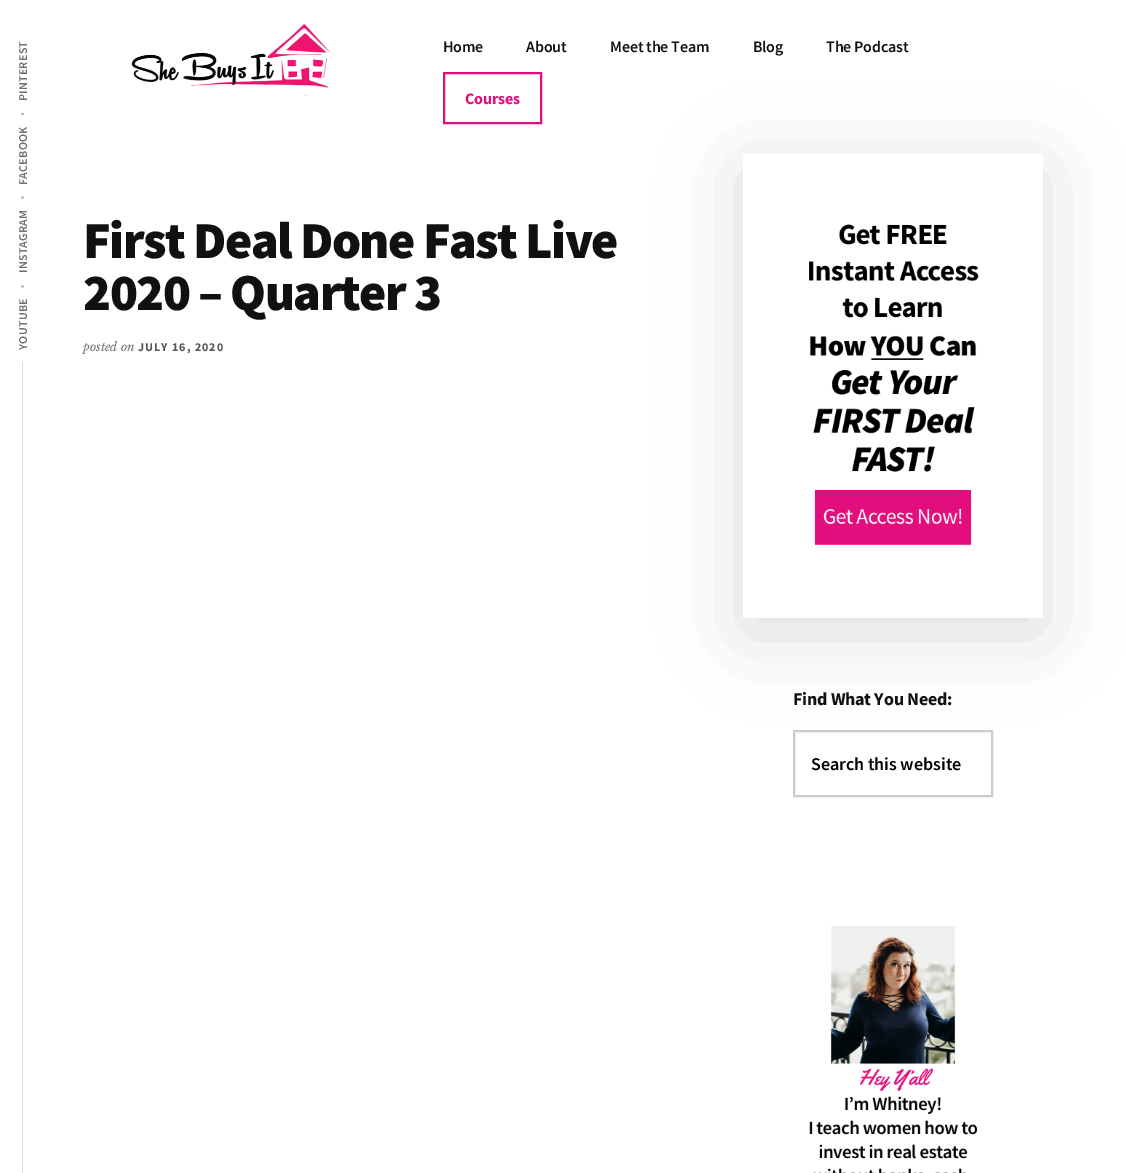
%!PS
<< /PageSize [1126 1173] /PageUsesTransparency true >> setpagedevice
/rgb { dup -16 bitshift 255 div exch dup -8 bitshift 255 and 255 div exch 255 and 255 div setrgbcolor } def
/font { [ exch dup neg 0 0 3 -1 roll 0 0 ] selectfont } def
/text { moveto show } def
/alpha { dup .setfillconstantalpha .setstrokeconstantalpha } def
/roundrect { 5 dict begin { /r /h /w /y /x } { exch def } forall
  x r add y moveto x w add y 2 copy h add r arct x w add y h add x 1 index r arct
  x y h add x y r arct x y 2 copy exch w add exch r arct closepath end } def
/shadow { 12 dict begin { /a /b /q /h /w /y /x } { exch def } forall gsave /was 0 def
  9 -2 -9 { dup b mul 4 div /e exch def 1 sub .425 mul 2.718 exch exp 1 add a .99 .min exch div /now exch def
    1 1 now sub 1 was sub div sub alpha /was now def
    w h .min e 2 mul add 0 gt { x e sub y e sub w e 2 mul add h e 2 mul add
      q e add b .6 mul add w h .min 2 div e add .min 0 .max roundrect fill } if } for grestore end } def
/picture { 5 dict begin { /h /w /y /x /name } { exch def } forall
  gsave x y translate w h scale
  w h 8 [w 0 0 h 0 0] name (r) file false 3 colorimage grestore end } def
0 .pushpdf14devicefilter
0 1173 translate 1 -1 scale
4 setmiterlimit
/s1 { /LibreBaskerville-Italic 12 font 16#707070 rgb } def
/s2 { /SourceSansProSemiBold-SemiBold 18 font 16#000000 rgb } def
16#FFFFFF rgb
0 0 1126 1173 rectfill
/SourceSansProSemiBold-SemiBold 12 font
16#707070 rgb
gsave 27 101 translate -90 rotate 0 0 moveto 0.25 0 (PINTEREST) ashow grestore
16#999999 rgb
21.5 115 moveto 21.5 113 lineto 23.5 113 lineto 23.5 115 lineto closepath fill
16#707070 rgb
gsave 27 185 translate -90 rotate 0 0 moveto 0.25 0 (FACEBOOK) ashow grestore
16#999999 rgb
21.5 198.5 moveto 21.5 196.5 lineto 23.5 196.5 lineto 23.5 198.5 lineto closepath fill
16#707070 rgb
gsave 27 273 translate -90 rotate 0 0 moveto 0.25 0 (INSTAGRAM) ashow grestore
16#999999 rgb
21.5 287.5 moveto 21.5 285.5 lineto 23.5 285.5 lineto 23.5 287.5 lineto closepath fill
16#707070 rgb
gsave 27 350 translate -90 rotate 0 0 moveto 0.25 0 (YOUTUBE) ashow grestore
16#DDDDDD rgb
22 362 1 811 rectfill
(pic1.raw) 131 24 199 73 picture
/SourceSansProSemiBold-SemiBold 16 font
16#111111 rgb
443 52 moveto -0.2 0 (Home) ashow
526 52 moveto -0.2 0 (About) ashow
610 52 moveto -0.2 0 (Meet the Team) ashow
753 52 moveto -0.2 0 (Blog) ashow
826 52 moveto -0.2 0 (The Podcast) ashow
16#E20E7E rgb
2 setlinewidth
444 73 97 50 rectstroke
/SourceSansPro-Bold 16 font
465 104 moveto -0.2 0 (Courses) ashow
/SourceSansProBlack-Black 52 font
16#111111 rgb
83 258 moveto -1.55 0 (First Deal Done Fast Live) ashow
83 310 moveto -1.55 0 (2020 – Quarter 3) ashow
s1
(posted on) 83 351 text
/SourceSansPro-Bold 12 font
16#555555 rgb
138 351 moveto 1 0 (JULY 16, 2020) ashow
gsave
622 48 moveto 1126 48 lineto 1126 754 lineto 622 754 lineto closepath 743 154 moveto 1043 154 lineto 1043 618 lineto 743 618 lineto closepath eoclip newpath
16#000000 rgb
743 169 300 464 0 40 0.14 shadow
grestore
(pic2.raw) 809 224 170 321 picture
/SourceSansPro-Bold 18 font
16#111111 rgb
793 705 moveto -0.2 0 (Find What You Need:) ashow
16#CCCCCC rgb
794 731 198 65 rectstroke
s2
(Search this website) 811 770 text
(pic3.raw) 809 926 169 247 picture
.poppdf14devicefilter showpage
